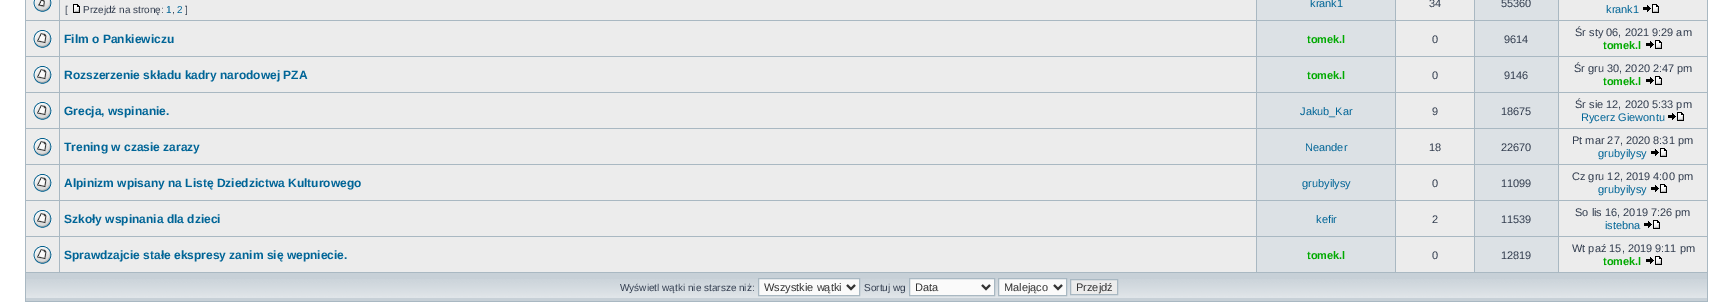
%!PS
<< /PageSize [1733 303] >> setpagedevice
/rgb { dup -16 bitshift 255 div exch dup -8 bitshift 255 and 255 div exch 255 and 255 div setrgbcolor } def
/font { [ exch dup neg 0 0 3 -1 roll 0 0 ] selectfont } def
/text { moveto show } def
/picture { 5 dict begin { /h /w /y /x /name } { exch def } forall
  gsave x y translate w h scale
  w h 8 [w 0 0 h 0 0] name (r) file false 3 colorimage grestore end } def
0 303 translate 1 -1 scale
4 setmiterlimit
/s1 { /LiberationSans-Regular 11 font 16#006597 rgb } def
/s2 { /LiberationSans-Regular 11 font 16#323D4F rgb } def
/s3 { /LiberationSans-Regular 10 font 16#323D4F rgb } def
/s4 { /LiberationSans-Regular 10 font 16#006597 rgb } def
/s5 { /LiberationSans-Bold 12 font 16#006597 rgb } def
/s6 { /LiberationSans-Bold 11 font 16#00AA00 rgb } def
/s7 { /LiberationSans-Regular 11 font 16#333333 rgb } def
16#FFFFFF rgb
0 0 1733 303 rectfill
16#A9B8C2 rgb
25 0 1683 302 rectfill
16#ECECEC rgb
26 0 33 20 rectfill
(pic1.raw) 33 0 19 12 picture
16#DCE1E5 rgb
1257 0 138 20 rectfill
s1
(krank1) 1310 7 text
16#ECECEC rgb
1396 0 78 20 rectfill
s2
(34) 1429 7 text
16#DCE1E5 rgb
1475 0 83 20 rectfill
s2
(55360) 1501 7 text
16#ECECEC rgb
60 0 1196 20 rectfill
s3
([) 65 13 text
(pic2.raw) 73 4 7 9 picture
(Przejdź na stronę:) 83 13 text
s4
(1) 166 13 text
s3
(,) 172 13 text
s4
(2) 177 13 text
s3
(]) 185 13 text
16#ECECEC rgb
1559 0 148 20 rectfill
s1
(krank1) 1606 13 text
(pic3.raw) 1643 4 16 9 picture
16#ECECEC rgb
26 21 33 35 rectfill
(pic4.raw) 33 30 19 18 picture
60 21 1196 35 rectfill
s5
(Film o Pankiewiczu) 64 43 text
16#DCE1E5 rgb
1257 21 138 35 rectfill
s6
(tomek.l) 1307 43 text
16#ECECEC rgb
1396 21 78 35 rectfill
s2
(0) 1432 43 text
16#DCE1E5 rgb
1475 21 83 35 rectfill
s2
(9614) 1504 43 text
16#ECECEC rgb
1559 21 148 35 rectfill
s2
(Śr sty 06, 2021 9:29 am) 1575 36 text
s6
(tomek.l) 1603 49 text
(pic3.raw) 1646 40 16 9 picture
16#ECECEC rgb
26 57 33 35 rectfill
(pic4.raw) 33 66 19 18 picture
60 57 1196 35 rectfill
s5
(Rozszerzenie składu kadry narodowej PZA) 64 79 text
16#DCE1E5 rgb
1257 57 138 35 rectfill
s6
(tomek.l) 1307 79 text
16#ECECEC rgb
1396 57 78 35 rectfill
s2
(0) 1432 79 text
16#DCE1E5 rgb
1475 57 83 35 rectfill
s2
(9146) 1504 79 text
16#ECECEC rgb
1559 57 148 35 rectfill
s2
(Śr gru 30, 2020 2:47 pm) 1574 72 text
s6
(tomek.l) 1603 85 text
(pic3.raw) 1646 76 16 9 picture
16#ECECEC rgb
26 93 33 35 rectfill
(pic4.raw) 33 102 19 18 picture
60 93 1196 35 rectfill
s5
(Grecja, wspinanie.) 64 115 text
16#DCE1E5 rgb
1257 93 138 35 rectfill
s1
(Jakub_Kar) 1300 115 text
16#ECECEC rgb
1396 93 78 35 rectfill
s2
(9) 1432 115 text
16#DCE1E5 rgb
1475 93 83 35 rectfill
s2
(18675) 1501 115 text
16#ECECEC rgb
1559 93 148 35 rectfill
s2
(Śr sie 12, 2020 5:33 pm) 1575 108 text
s1
(Rycerz Giewontu) 1581 121 text
(pic3.raw) 1668 112 16 9 picture
16#ECECEC rgb
26 129 33 35 rectfill
(pic4.raw) 33 138 19 18 picture
60 129 1196 35 rectfill
s5
(Trening w czasie zarazy) 64 151 text
16#DCE1E5 rgb
1257 129 138 35 rectfill
s1
(Neander) 1305 151 text
16#ECECEC rgb
1396 129 78 35 rectfill
s2
(18) 1429 151 text
16#DCE1E5 rgb
1475 129 83 35 rectfill
s2
(22670) 1501 151 text
16#ECECEC rgb
1559 129 148 35 rectfill
s2
(Pt mar 27, 2020 8:31 pm) 1572 144 text
s1
(grubyilysy) 1598 157 text
(pic3.raw) 1651 148 16 9 picture
16#ECECEC rgb
26 165 33 35 rectfill
(pic4.raw) 33 174 19 18 picture
60 165 1196 35 rectfill
s5
(Alpinizm wpisany na Listę Dziedzictwa Kulturowego) 64 187 text
16#DCE1E5 rgb
1257 165 138 35 rectfill
s1
(grubyilysy) 1302 187 text
16#ECECEC rgb
1396 165 78 35 rectfill
s2
(0) 1432 187 text
16#DCE1E5 rgb
1475 165 83 35 rectfill
s2
(11099) 1501 187 text
16#ECECEC rgb
1559 165 148 35 rectfill
s2
(Cz gru 12, 2019 4:00 pm) 1572 180 text
s1
(grubyilysy) 1598 193 text
(pic3.raw) 1651 184 16 9 picture
16#ECECEC rgb
26 201 33 35 rectfill
(pic4.raw) 33 210 19 18 picture
60 201 1196 35 rectfill
s5
(Szkoły wspinania dla dzieci) 64 223 text
16#DCE1E5 rgb
1257 201 138 35 rectfill
s1
(kefir) 1316 223 text
16#ECECEC rgb
1396 201 78 35 rectfill
s2
(2) 1432 223 text
16#DCE1E5 rgb
1475 201 83 35 rectfill
s2
(11539) 1501 223 text
16#ECECEC rgb
1559 201 148 35 rectfill
s2
(So lis 16, 2019 7:26 pm) 1575 216 text
s1
(istebna) 1605 229 text
(pic3.raw) 1644 220 16 9 picture
16#ECECEC rgb
26 237 33 35 rectfill
(pic4.raw) 33 246 19 18 picture
60 237 1196 35 rectfill
s5
(Sprawdzajcie stałe ekspresy zanim się wepniecie.) 64 259 text
16#DCE1E5 rgb
1257 237 138 35 rectfill
s6
(tomek.l) 1307 259 text
16#ECECEC rgb
1396 237 78 35 rectfill
s2
(0) 1432 259 text
16#DCE1E5 rgb
1475 237 83 35 rectfill
s2
(12819) 1501 259 text
16#ECECEC rgb
1559 237 148 35 rectfill
s2
(Wt paź 15, 2019 9:11 pm) 1572 252 text
s6
(tomek.l) 1603 265 text
(pic3.raw) 1646 256 16 9 picture
16#C7D0D7 rgb
26 273 1681 28 rectfill
(pic5.raw) 26 279 1681 19 picture
s3
(Wyświetl wątki nie starsze niż:) 620 291 text
16#FAFAFA rgb
758.5 278.5 moveto 859.5 278.5 lineto 859.5 295.5 lineto 758.5 295.5 lineto closepath gsave fill grestore
16#A9B8C2 rgb
stroke
16#333333 rgb
2 setlinewidth
847 285 moveto 851 289 lineto 855 285 lineto stroke
s7
(Wszystkie wątki) 764 291 text
s3
(Sortuj wg) 864 291 text
16#FAFAFA rgb
909.5 278.5 moveto 994.5 278.5 lineto 994.5 295.5 lineto 909.5 295.5 lineto closepath gsave fill grestore
16#A9B8C2 rgb
1 setlinewidth
stroke
16#333333 rgb
2 setlinewidth
982 285 moveto 986 289 lineto 990 285 lineto stroke
s7
(Data) 915 291 text
16#FAFAFA rgb
998.5 278.5 moveto 1066.5 278.5 lineto 1066.5 295.5 lineto 998.5 295.5 lineto closepath gsave fill grestore
16#A9B8C2 rgb
1 setlinewidth
stroke
16#333333 rgb
2 setlinewidth
1054 285 moveto 1058 289 lineto 1062 285 lineto stroke
(Malejąco) 1004 291 text
16#ECECEC rgb
1070.5 279.5 moveto 1117.5 279.5 lineto 1117.5 294.5 lineto 1070.5 294.5 lineto closepath gsave fill grestore
16#A9B8C2 rgb
1 setlinewidth
stroke
s7
(Przejdź) 1076 291 text
showpage
